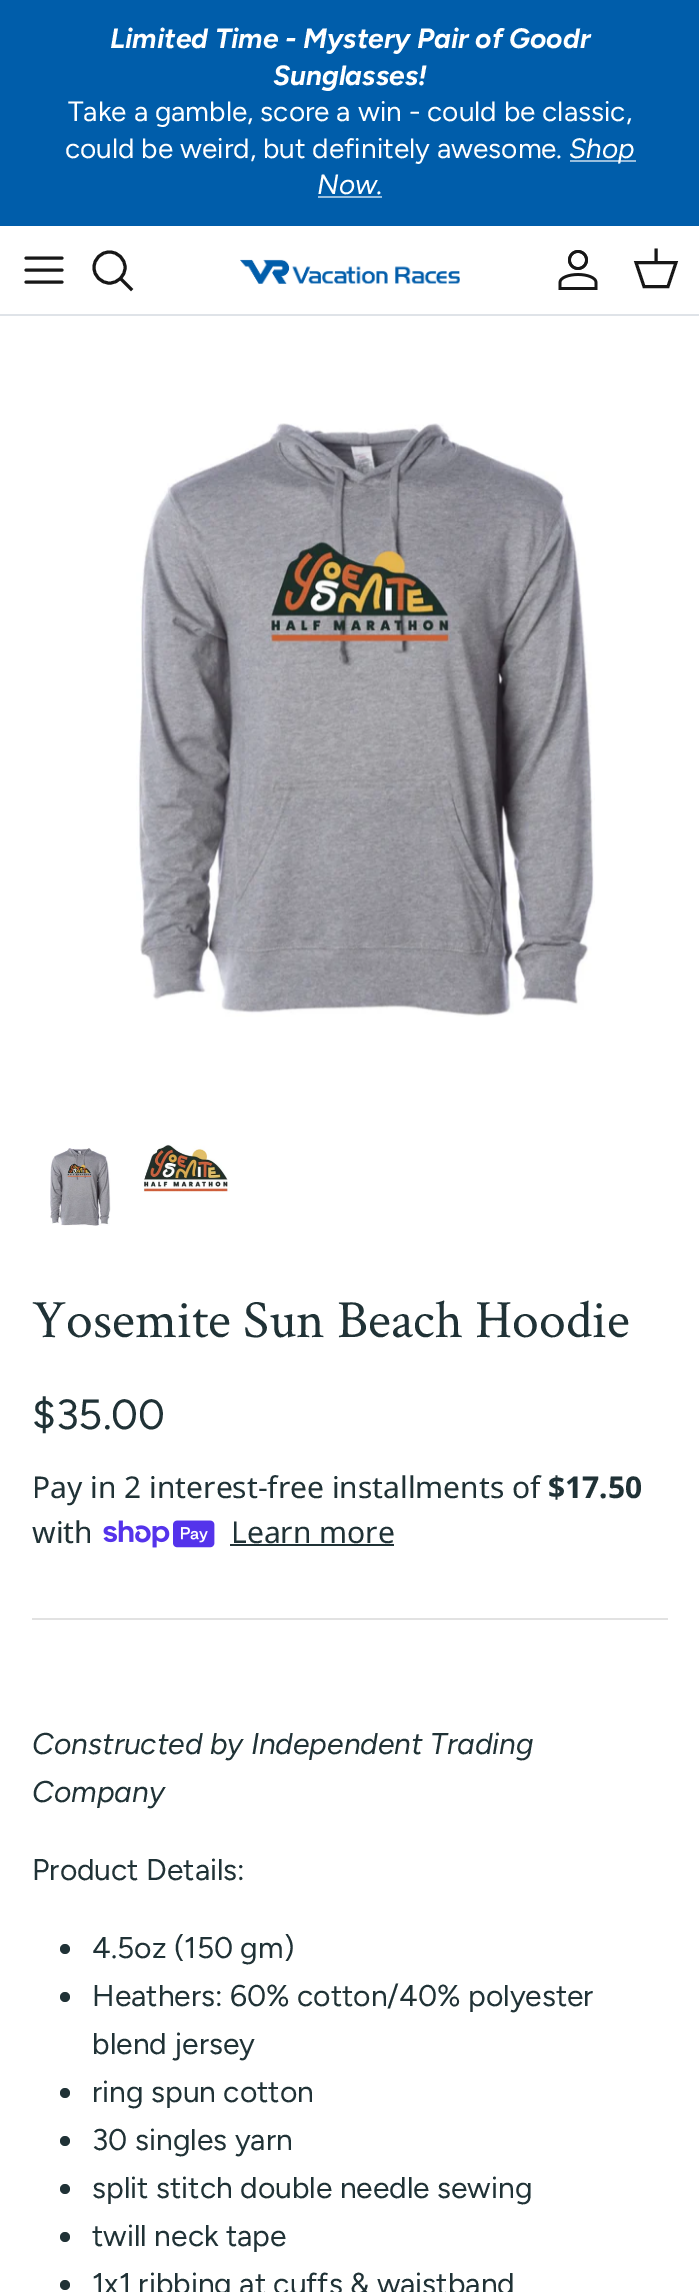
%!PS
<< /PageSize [699 2292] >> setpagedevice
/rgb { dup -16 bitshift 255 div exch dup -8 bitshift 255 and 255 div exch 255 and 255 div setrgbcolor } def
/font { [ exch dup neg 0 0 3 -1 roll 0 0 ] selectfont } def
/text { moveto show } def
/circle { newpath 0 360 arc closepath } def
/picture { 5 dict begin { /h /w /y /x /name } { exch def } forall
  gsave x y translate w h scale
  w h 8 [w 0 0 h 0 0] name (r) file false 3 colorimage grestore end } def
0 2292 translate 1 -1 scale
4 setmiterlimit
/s1 { /Figtree-BoldItalic 28 font 16#FFFFFF rgb } def
/s2 { /Figtree-Regular 28 font 16#FFFFFF rgb } def
/s3 { /Figtree-Italic 28 font 16#FFFFFF rgb } def
/s4 { /CrimsonText-Regular 54 font 16#203236 rgb } def
/s5 { /Figtree-Regular 42 font 16#203236 rgb } def
/s6 { /NotoSans-Regular 30 font 16#203236 rgb } def
/s7 { /NotoSans-Bold 30 font 16#203236 rgb } def
/s8 { /Figtree-Italic 30 font 16#203236 rgb } def
/s9 { /Figtree-Regular 30 font 16#203236 rgb } def
16#FFFFFF rgb
0 0 699 2292 rectfill
16#005DAA rgb
0 0 699 226 rectfill
s1
(Limited Time - Mystery Pair of Goodr) 110 48 text
(Sunglasses!) 273 85 text
s2
(Take a gamble, score a win - could be classic,) 68 121 text
(could be weird, but definitely awesome) 65 158 text
s3
(.) 557 158 text
16#99BEDD rgb
570 160 66 2 rectfill
s3
(Shop) 569 158 text
(Now.) 317 194 text
16#99BEDD rgb
318 196 64 2 rectfill
16#DFE3E8 rgb
0 314 699 2 rectfill
16#171717 rgb
3 setlinewidth
1 setlinecap
1 setlinejoin
26 270 moveto 62 270 lineto 26 258 moveto 62 258 lineto 26 282 moveto 62 282 lineto stroke
0 setlinecap
0 setlinejoin
109.5 267.5 15.5 circle stroke
2 setlinecap
122 280 moveto 131 289 lineto stroke
(pic1.raw) 240 259 220 25 picture
(pic2.raw) 558 250 40 40 picture
0 setlinecap
636 262.5 moveto 676 262.5 lineto 668 286.5 lineto 644 286.5 lineto closepath stroke
2 setlinecap
656 262 moveto 656 250 lineto stroke
(pic3.raw) 136 423 459 594 picture
(pic4.raw) 50 1148 61 78 picture
(pic5.raw) 143 1144 87 48 picture
s4
(Yosemite Sun Beach Hoodie) 32 1337 text
s5
($35.00) 32 1429 text
s6
(Pay in 2 interest-free installments of) 32 1498 text
s7
($17.50) 548 1498 text
s6
(with) 32 1543 text
(pic6.raw) 103 1520 112 28 picture
(Learn more) 231 1543 text
230 1544 164 2 rectfill
16#E2E2E2 rgb
32 1618 636 2 rectfill
s8
(Constructed by Independent Trading) 32 1754 text
(Company) 32 1802 text
s9
(Product Details:) 32 1880 text
65 1949 5 circle fill
(4.5oz \(150 gm\)) 92 1958 text
65 1997 5 circle fill
(Heathers: 60% cotton/40% polyester) 92 2006 text
(blend jersey) 92 2054 text
65 2093 5 circle fill
(ring spun cotton) 92 2102 text
65 2141 5 circle fill
(30 singles yarn) 92 2150 text
65 2189 5 circle fill
(split stitch double needle sewing) 92 2198 text
65 2237 5 circle fill
(twill neck tape) 92 2246 text
65 2285 5 circle fill
(1x1 ribbing at cuffs & waistband) 92 2294 text
showpage
